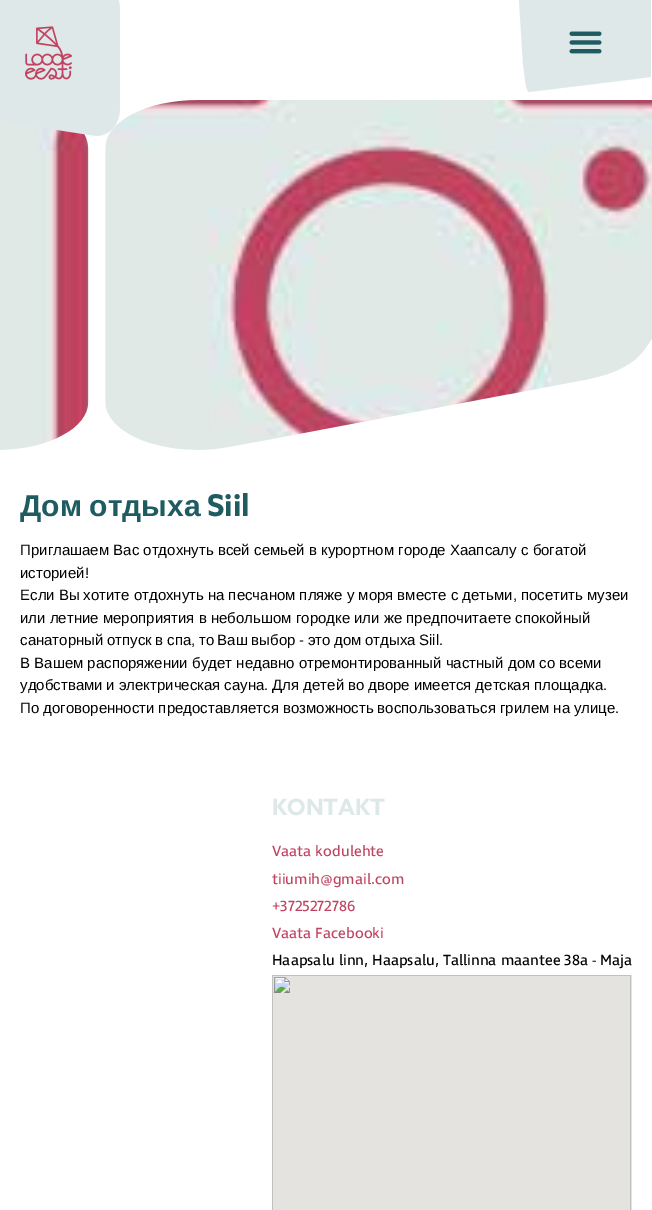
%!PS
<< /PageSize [652 1210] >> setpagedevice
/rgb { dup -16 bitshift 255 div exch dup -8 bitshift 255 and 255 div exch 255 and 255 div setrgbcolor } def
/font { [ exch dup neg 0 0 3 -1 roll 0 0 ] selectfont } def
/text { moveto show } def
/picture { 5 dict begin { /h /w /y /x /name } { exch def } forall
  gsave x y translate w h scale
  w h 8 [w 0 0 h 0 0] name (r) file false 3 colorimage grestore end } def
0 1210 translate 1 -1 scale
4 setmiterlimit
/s1 { /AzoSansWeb-Bold 30 font 16#1E5C62 rgb } def
/s2 { /LiberationSans-Regular 15 font 16#000000 rgb } def
/s3 { /AzoSansWeb-Bold 22.5 font 16#DFE8E8 rgb } def
/s4 { /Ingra-Regular 15 font 16#C04361 rgb } def
/s5 { /Ingra-Regular 15 font 16#000000 rgb } def
16#FFFFFF rgb
0 0 652 1210 rectfill
(pic3.raw) 0 100 652 350 picture
(pic1.raw) 0 0 120 136 picture
16#DFE8E8 rgb
651 0 moveto 651 77 lineto 529 92 lineto 526 92 525 78 523 64 curveto 519 0 lineto closepath fill
(pic2.raw) 569 31 33 23 picture
/LiberationSans-Bold 30 font
16#1E5C62 rgb
20 516 moveto -1 0 32 (Дом отдыха) widthshow
s1
(Siil) 207 516 text
s2
(Приглашаем Вас отдохнуть всей семьей в курортном городе Хаапсалу с богатой) 20 555 text
(историей!) 20 578 text
20 600 moveto -0.2 0 32 (Если Вы хотите отдохнуть на песчаном пляже у моря вместе с детьми, посетить музеи) widthshow
(или летние мероприятия в небольшом городке или же предпочитаете спокойный) 20 623 text
20 645 moveto -0.6 0 32 (санаторный отпуск в спа, то Ваш выбор - это дом отдыха Siil.) widthshow
(В Вашем распоряжении будет недавно отремонтированный частный дом со всеми) 20 668 text
20 690 moveto -0.25 0 32 (удобствами и электрическая сауна. Для детей во дворе имеется детская площадка.) widthshow
20 713 moveto -0.25 0 32 (По договоренности предоставляется возможность воспользоваться грилем на улице.) widthshow
s3
(KONTAKT) 272 815 text
s4
(Vaata kodulehte) 272 856 text
(tiiumih@gmail.com) 272 884 text
(+3725272786) 272 911 text
(Vaata Facebooki) 272 938 text
s5
(Haapsalu linn, Haapsalu, Tallinna maantee 38a - Maja) 272 965 text
(pic4.raw) 272 975 360 235 picture
showpage
